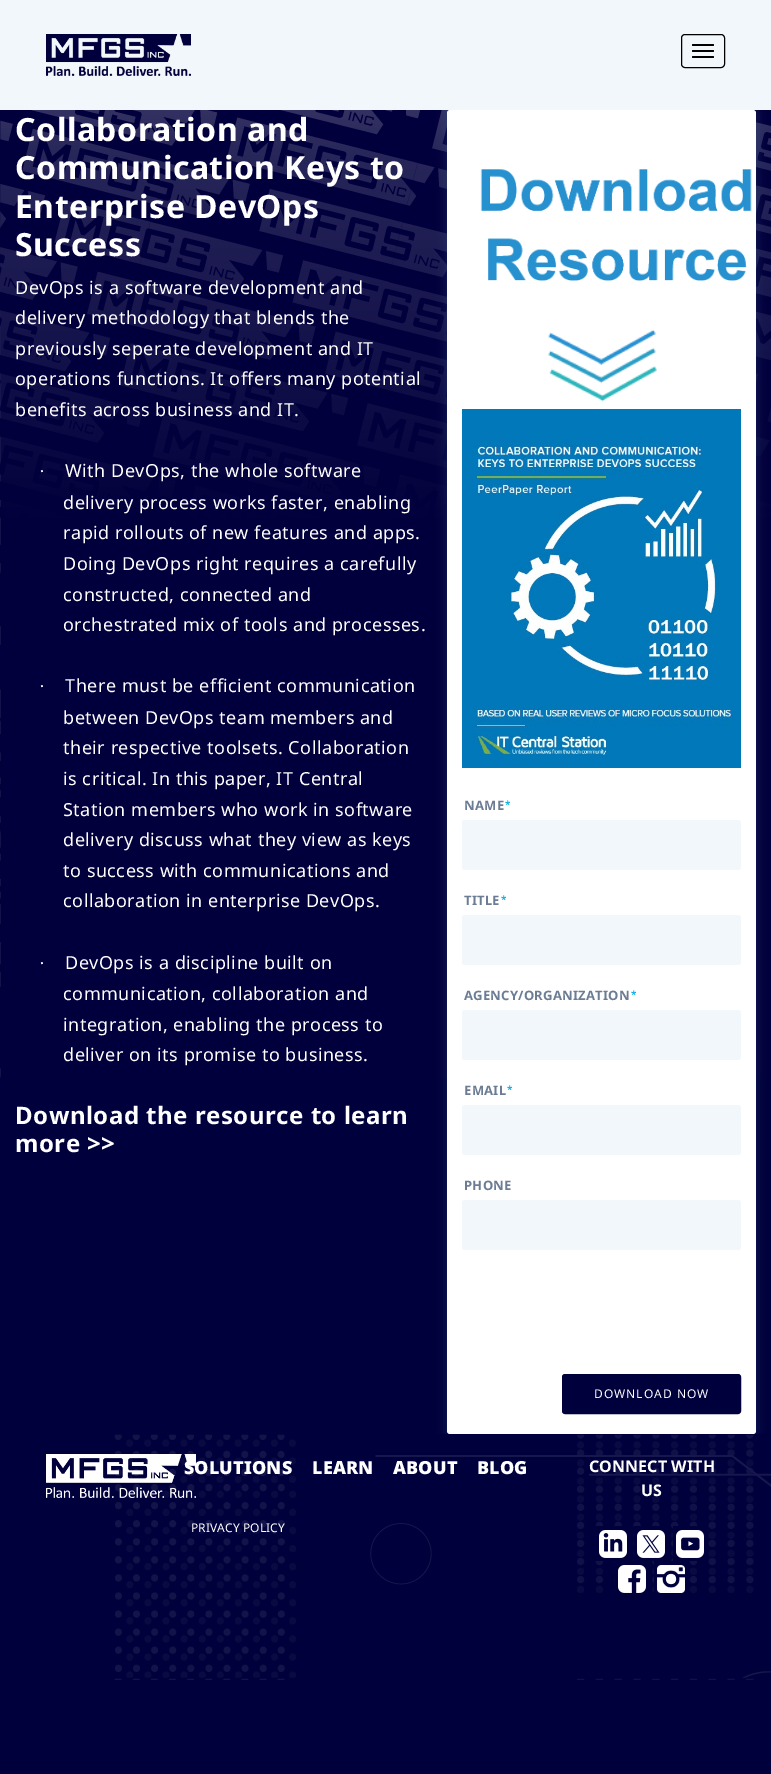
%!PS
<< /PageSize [771 1774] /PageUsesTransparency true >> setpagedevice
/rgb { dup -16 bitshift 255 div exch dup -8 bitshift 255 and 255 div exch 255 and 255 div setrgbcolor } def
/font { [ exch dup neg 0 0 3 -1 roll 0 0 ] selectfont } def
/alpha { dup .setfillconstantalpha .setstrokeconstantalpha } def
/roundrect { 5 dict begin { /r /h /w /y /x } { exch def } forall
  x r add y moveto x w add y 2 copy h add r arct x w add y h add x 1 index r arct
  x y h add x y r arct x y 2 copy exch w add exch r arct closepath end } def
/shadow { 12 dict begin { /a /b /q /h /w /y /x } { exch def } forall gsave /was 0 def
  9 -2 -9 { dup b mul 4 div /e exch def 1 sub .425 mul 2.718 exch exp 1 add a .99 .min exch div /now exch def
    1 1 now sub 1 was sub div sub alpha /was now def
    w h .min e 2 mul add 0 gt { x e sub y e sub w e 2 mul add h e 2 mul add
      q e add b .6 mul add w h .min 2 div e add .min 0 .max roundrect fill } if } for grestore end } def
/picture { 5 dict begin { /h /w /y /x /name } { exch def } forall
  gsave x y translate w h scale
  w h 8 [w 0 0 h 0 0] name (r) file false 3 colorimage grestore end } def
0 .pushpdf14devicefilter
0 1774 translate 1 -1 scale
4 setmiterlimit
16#00003C rgb
0 0 771 1774 rectfill
(pic1.raw) 0 110 771 968 picture
16#F2F7FB rgb
0 0 771 110 rectfill
(pic2.raw) 46 34 145 42 picture
16#000000 rgb
681.5 34.5 43 33 3.5 roundrect stroke
692 44 22 2 1 roundrect fill
692 50 22 2 1 roundrect fill
692 56 22 2 1 roundrect fill
/NotoSans-Bold 32 font
16#FFFFFF rgb
15 141 moveto 0.5 0 (Collaboration and) ashow
15 179 moveto 0.5 0 (Communication Keys to) ashow
15 218 moveto 0.5 0 (Enterprise DevOps) ashow
15 256 moveto 0.5 0 (Success) ashow
/NotoSans-Regular 18 font
15 294 moveto 0.5 0 (DevOps is a software development and) ashow
15 324 moveto 0.5 0 (delivery methodology that blends the) ashow
15 355 moveto 0.5 0 (previously seperate development and IT) ashow
15 385 moveto 0.5 0 (operations functions. It offers many potential) ashow
15 416 moveto 0.5 0 (benefits across business and IT.) ashow
/LiberationSerif-Regular 18 font
39 477 moveto 0.5 0 (·) ashow
/NotoSans-Regular 18 font
65 477 moveto 0.5 0 (With DevOps, the whole software) ashow
63 509 moveto 0.5 0 (delivery process works faster, enabling) ashow
63 539 moveto 0.5 0 (rapid rollouts of new features and apps.) ashow
63 570 moveto 0.5 0 (Doing DevOps right requires a carefully) ashow
63 601 moveto 0.5 0 (constructed, connected and) ashow
63 631 moveto 0.5 0 (orchestrated mix of tools and processes.) ashow
/LiberationSerif-Regular 18 font
39 692 moveto 0.5 0 (·) ashow
/NotoSans-Regular 18 font
65 692 moveto 0.5 0 (There must be efficient communication) ashow
63 724 moveto 0.5 0 (between DevOps team members and) ashow
63 754 moveto 0.5 0 (their respective toolsets. Collaboration) ashow
63 785 moveto 0.5 0 (is critical. In this paper, IT Central) ashow
63 816 moveto 0.5 0 (Station members who work in software) ashow
63 846 moveto 0.5 0 (delivery discuss what they view as keys) ashow
63 877 moveto 0.5 0 (to success with communications and) ashow
63 907 moveto 0.5 0 (collaboration in enterprise DevOps.) ashow
/LiberationSerif-Regular 18 font
39 969 moveto 0.5 0 (·) ashow
/NotoSans-Regular 18 font
65 969 moveto 0.5 0 (DevOps is a discipline built on) ashow
63 1000 moveto 0.5 0 (communication, collaboration and) ashow
63 1031 moveto 0.5 0 (integration, enabling the process to) ashow
63 1061 moveto 0.5 0 (deliver on its promise to business.) ashow
/NotoSans-Bold 24 font
15 1124 moveto 0.5 0 (Download the resource to learn) ashow
15 1152 moveto 0.5 0 (more >>) ashow
(pic6.raw) 114 1434 657 246 picture
gsave
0 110 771 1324 rectclip
16#33699F rgb
447 110 309 1324 3 5 0.31 shadow
grestore
447 110 309 1324 3 roundrect fill
(pic3.raw) 480 169 272 112 picture
(pic4.raw) 548 329 109 73 picture
(pic5.raw) 462 409 279 359 picture
/NotoSans-Bold 13 font
16#6B7C94 rgb
464 810 moveto 0.25 0 (NAME) ashow
/NotoSans-Bold 10 font
16#0EAEE6 rgb
505 808 moveto 0.25 0 (*) ashow
16#F2F7FB rgb
462 820 279 50 3 roundrect fill
/NotoSans-Bold 13 font
16#6B7C94 rgb
464 905 moveto 0.25 0 (TITLE) ashow
/NotoSans-Bold 10 font
16#0EAEE6 rgb
501 903 moveto 0.25 0 (*) ashow
16#F2F7FB rgb
462 915 279 50 3 roundrect fill
/NotoSans-Bold 13 font
16#6B7C94 rgb
464 1000 moveto 0.25 0 (AGENCY/ORGANIZATION) ashow
/NotoSans-Bold 10 font
16#0EAEE6 rgb
631 998 moveto 0.25 0 (*) ashow
16#F2F7FB rgb
462 1010 279 50 3 roundrect fill
/NotoSans-Bold 13 font
16#6B7C94 rgb
464 1095 moveto 0.25 0 (EMAIL) ashow
/NotoSans-Bold 10 font
16#0EAEE6 rgb
507 1093 moveto 0.25 0 (*) ashow
16#F2F7FB rgb
462 1105 279 50 3 roundrect fill
/NotoSans-Bold 13 font
16#6B7C94 rgb
464 1190 moveto 0.25 0 (PHONE) ashow
16#F2F7FB rgb
462 1200 279 50 3 roundrect fill
16#00003C rgb
562.5 1374.5 178 39 2.5 roundrect gsave fill grestore
stroke
/NotoSans-Regular 12 font
16#FFFFFF rgb
594 1398 moveto 1 0 (DOWNLOAD NOW) ashow
(pic7.raw) 46 1454 150 44 picture
/NotoSans-Black 18 font
184 1474 moveto 0.1 0 (SOLUTIONS) ashow
/NotoSans-Regular 12 font
191 1532 moveto 0.1 0 (PRIVACY POLICY) ashow
/NotoSans-Black 18 font
312 1474 moveto 0.1 0 (LEARN) ashow
393 1474 moveto 0.1 0 (ABOUT) ashow
477 1474 moveto 0.1 0 (BLOG) ashow
/NotoSans-Bold 16 font
589 1472 moveto 0.1 0 (CONNECT WITH) ashow
641 1496 moveto 0.1 0 (US) ashow
16#00003C rgb
596 1526 26 35 rectfill
(pic8.raw) 599 1530 28 28 picture
634 1526 26 35 rectfill
(pic9.raw) 637 1530 28 28 picture
673 1526 24 35 rectfill
(pic10.raw) 676 1530 28 28 picture
615 1561 26 32 rectfill
(pic11.raw) 618 1565 28 28 picture
654 1561 25 32 rectfill
(pic12.raw) 657 1565 28 28 picture
.poppdf14devicefilter showpage
